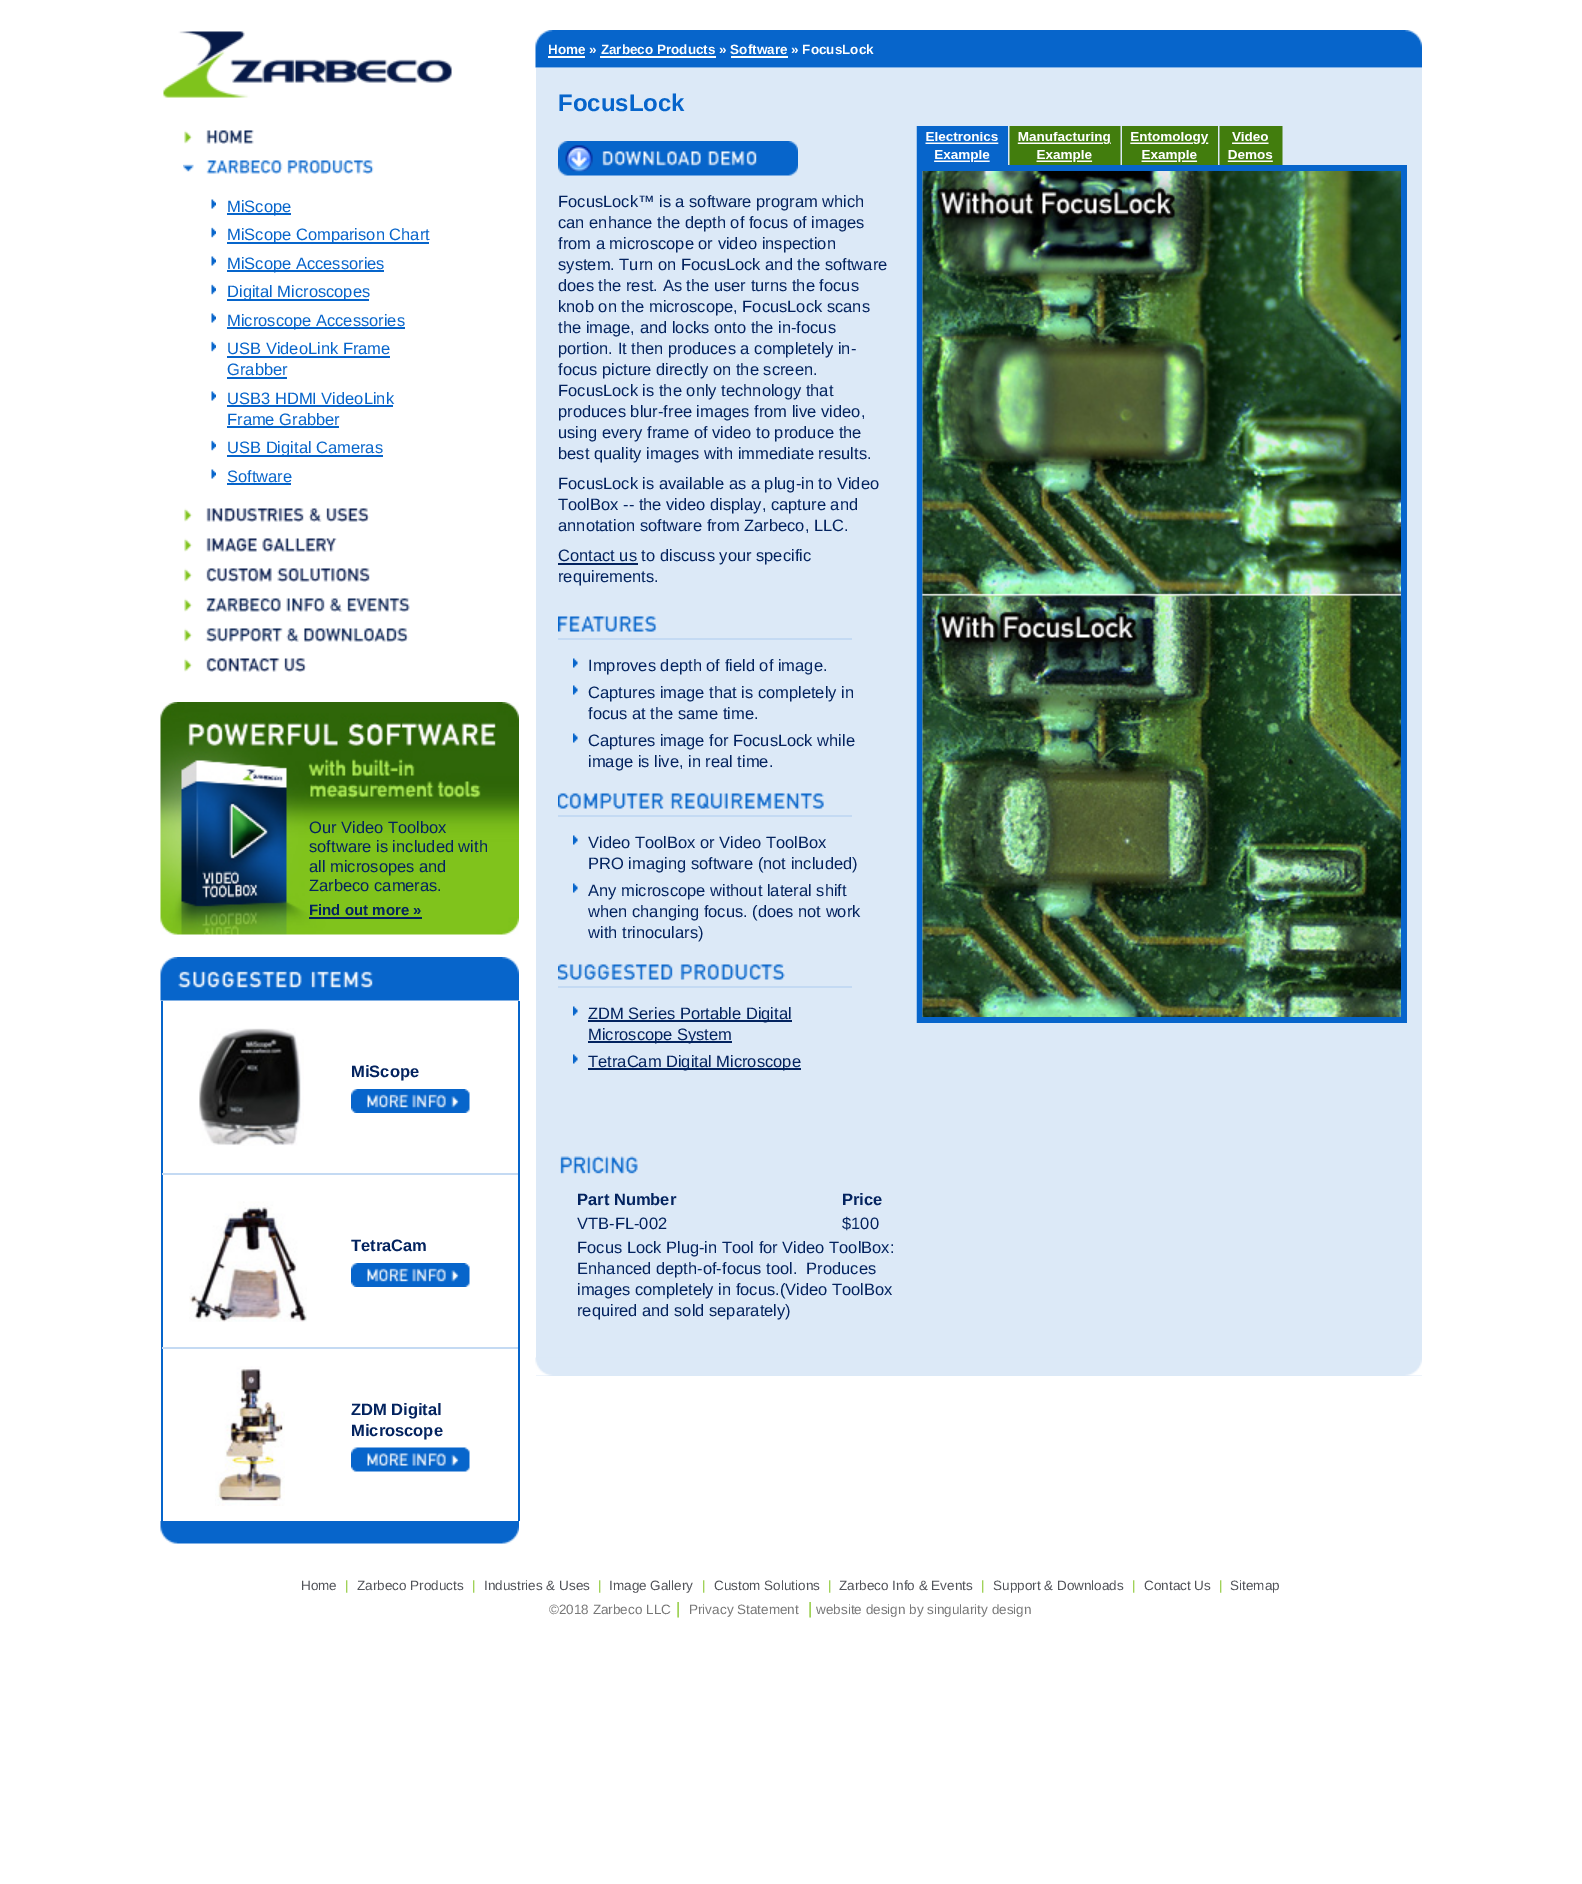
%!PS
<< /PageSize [1582 1884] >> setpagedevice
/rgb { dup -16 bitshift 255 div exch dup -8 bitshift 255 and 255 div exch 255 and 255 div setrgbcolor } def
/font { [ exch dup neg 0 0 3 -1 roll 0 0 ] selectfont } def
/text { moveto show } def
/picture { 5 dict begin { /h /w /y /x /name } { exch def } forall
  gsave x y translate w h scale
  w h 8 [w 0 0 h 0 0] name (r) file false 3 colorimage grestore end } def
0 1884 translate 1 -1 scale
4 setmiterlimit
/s1 { /LiberationSans-Regular 16.5 font 16#0765CB rgb } def
/s2 { /LiberationSans-Regular 16.5 font 16#03235F rgb } def
/s3 { /LiberationSans-Bold 15 font 16#03235F rgb } def
/s4 { /LiberationSans-Bold 16.5 font 16#03235F rgb } def
/s5 { /LiberationSans-Bold 13.5 font 16#FFFFFF rgb } def
/s6 { /LiberationSans-Bold 24 font 16#0765CB rgb } def
/s7 { /LiberationSans-Regular 13.5 font 16#505258 rgb } def
/s8 { /LiberationSans-Regular 13.5 font 16#7EC21C rgb } def
/s9 { /LiberationSans-Regular 13.5 font 16#777777 rgb } def
/s10 { /LiberationSans-Regular 16.5 font 16#7EC21C rgb } def
16#FFFFFF rgb
0 0 1582 1884 rectfill
(pic1.raw) 163 31 289 67 picture
(pic2.raw) 184 130 70 14 picture
(pic3.raw) 183 160 191 14 picture
(pic4.raw) 211 199 5 10 picture
16#0765CB rgb
227 213 64 2 rectfill
s1
(MiScope) 227 212 text
(pic5.raw) 211 227 5 11 picture
227 242 202 2 rectfill
(MiScope Comparison Chart) 227 240 text
(pic4.raw) 211 256 5 10 picture
227 270 157 2 rectfill
(MiScope Accessories) 227 269 text
(pic5.raw) 211 284 5 11 picture
227 299 142 2 rectfill
(Digital Microscopes) 227 297 text
(pic4.raw) 211 313 5 10 picture
227 327 178 2 rectfill
(Microscope Accessories) 227 326 text
(pic5.raw) 211 341 5 11 picture
(USB VideoLink Frame) 227 354 text
227 356 163 2 rectfill
(Grabber) 227 375 text
227 377 60 2 rectfill
(pic4.raw) 211 391 5 10 picture
(USB3 HDMI VideoLink) 227 404 text
227 405 166 2 rectfill
(Frame Grabber) 227 425 text
227 426 112 2 rectfill
(pic5.raw) 211 440 5 11 picture
227 455 156 2 rectfill
(USB Digital Cameras) 227 453 text
(pic4.raw) 211 469 5 10 picture
(Software) 227 482 text
227 483 64 2 rectfill
(pic6.raw) 184 508 186 14 picture
(pic7.raw) 184 538 153 14 picture
(pic8.raw) 184 568 186 14 picture
(pic9.raw) 184 598 226 14 picture
(pic10.raw) 184 628 225 14 picture
(pic11.raw) 184 658 123 14 picture
(pic12.raw) 160 702 359 233 picture
s2
(Our Video Toolbox) 309 833 text
(software is included with) 309 852 text
(all microsopes and) 309 872 text
(Zarbeco cameras.) 309 891 text
s3
(Find out more ») 309 915 text
309 917 113 2 rectfill
(pic13.raw) 160 957 359 44 picture
16#0765CB rgb
518 1001 2 520 rectfill
161 1001 2 520 rectfill
(pic14.raw) 199 1028 105 118 picture
s4
(MiScope) 351 1077 text
(pic15.raw) 351 1089 119 24 picture
16#C4DAF3 rgb
162 1173 356 2 rectfill
162 1347 356 2 rectfill
(pic16.raw) 189 1201 118 121 picture
s4
(TetraCam) 351 1251 text
(pic15.raw) 351 1263 119 24 picture
(pic17.raw) 215 1366 70 140 picture
(ZDM Digital) 351 1415 text
(Microscope) 351 1436 text
(pic18.raw) 351 1447 119 25 picture
(pic19.raw) 160 1521 359 23 picture
(pic20.raw) 535 30 887 38 picture
s5
(Home » Zarbeco Products » Software » FocusLock) 548 54 text
548 56 37 2 rectfill
600 56 116 2 rectfill
731 56 57 2 rectfill
16#DCE9F7 rgb
536 68 886 1308 rectfill
(pic21.raw) 535 1357 887 19 picture
s6
(FocusLock) 558 111 text
(pic22.raw) 558 141 240 35 picture
(pic23.raw) 916 126 491 897 picture
s2
(FocusLock™ is a software program which) 558 207 text
(can enhance the depth of focus of images) 558 228 text
(from a microscope or video inspection) 558 249 text
(system. Turn on FocusLock and the software) 558 270 text
(does the rest. As the user turns the focus) 558 291 text
(knob on the microscope, FocusLock scans) 558 312 text
(the image, and locks onto the in-focus) 558 333 text
(portion. It then produces a completely in-) 558 354 text
(focus picture directly on the screen.) 558 375 text
(FocusLock is the only technology that) 558 396 text
(produces blur-free images from live video,) 558 417 text
(using every frame of video to produce the) 558 438 text
(best quality images with immediate results.) 558 459 text
(FocusLock is available as a plug-in to Video) 558 489 text
(ToolBox -- the video display, capture and) 558 510 text
(annotation software from Zarbeco, LLC.) 558 531 text
558 563 80 2 rectfill
(Contact us to discuss your specific) 558 561 text
(requirements.) 558 582 text
16#C4DAF3 rgb
558 638 294 2 rectfill
(pic24.raw) 558 616 99 16 picture
(pic25.raw) 573 658 5 10 picture
s2
(Improves depth of field of image.) 588 671 text
(pic25.raw) 573 685 5 10 picture
(Captures image that is completely in) 588 698 text
(focus at the same time.) 588 719 text
(pic25.raw) 573 733 5 10 picture
(Captures image for FocusLock while) 588 746 text
(image is live, in real time.) 588 767 text
16#C4DAF3 rgb
558 815 294 2 rectfill
(pic26.raw) 558 793 266 17 picture
(pic25.raw) 573 835 5 10 picture
s2
(Video ToolBox or Video ToolBox) 588 848 text
(PRO imaging software \(not included\)) 588 869 text
(pic25.raw) 573 883 5 10 picture
(Any microscope without lateral shift) 588 896 text
(when changing focus. \(does not work) 588 917 text
(with trinoculars\)) 588 938 text
16#C4DAF3 rgb
558 986 294 2 rectfill
(pic27.raw) 558 964 227 16 picture
(pic25.raw) 573 1006 5 10 picture
16#03235F rgb
588 1020 204 2 rectfill
(ZDM Series Portable Digital) 588 1019 text
588 1041 144 2 rectfill
(Microscope System) 588 1040 text
(pic25.raw) 573 1054 5 10 picture
588 1068 213 2 rectfill
(TetraCam Digital Microscope) 588 1067 text
(pic28.raw) 560 1156 78 18 picture
s4
(Part Number) 577 1205 text
(Price) 842 1205 text
s2
(VTB-FL-002) 577 1229 text
($100) 842 1229 text
(Focus Lock Plug-in Tool for Video ToolBox:) 577 1253 text
(Enhanced depth-of-focus tool.  Produces) 577 1274 text
(images completely in focus.\(Video ToolBox) 577 1295 text
(required and sold separately\)) 577 1316 text
s7
(Home) 301 1590 text
s8
(|) 345 1590 text
s7
(Zarbeco Products) 357 1590 text
s8
(|) 472 1590 text
s7
(Industries & Uses) 484 1590 text
s8
(|) 598 1590 text
s7
(Image Gallery) 609 1590 text
s8
(|) 702 1590 text
s7
(Custom Solutions) 714 1590 text
s8
(|) 828 1590 text
s7
(Zarbeco Info & Events) 839 1590 text
s8
(|) 981 1590 text
s7
(Support & Downloads) 993 1590 text
s8
(|) 1132 1590 text
s7
(Contact Us) 1144 1590 text
s8
(|) 1219 1590 text
s7
(Sitemap) 1230 1590 text
s9
(©2018 Zarbeco LLC) 549 1614 text
s10
(|) 676 1614 text
s9
(Privacy Statement) 689 1614 text
s10
(|) 808 1614 text
s9
(website design by singularity design) 816 1614 text
showpage
